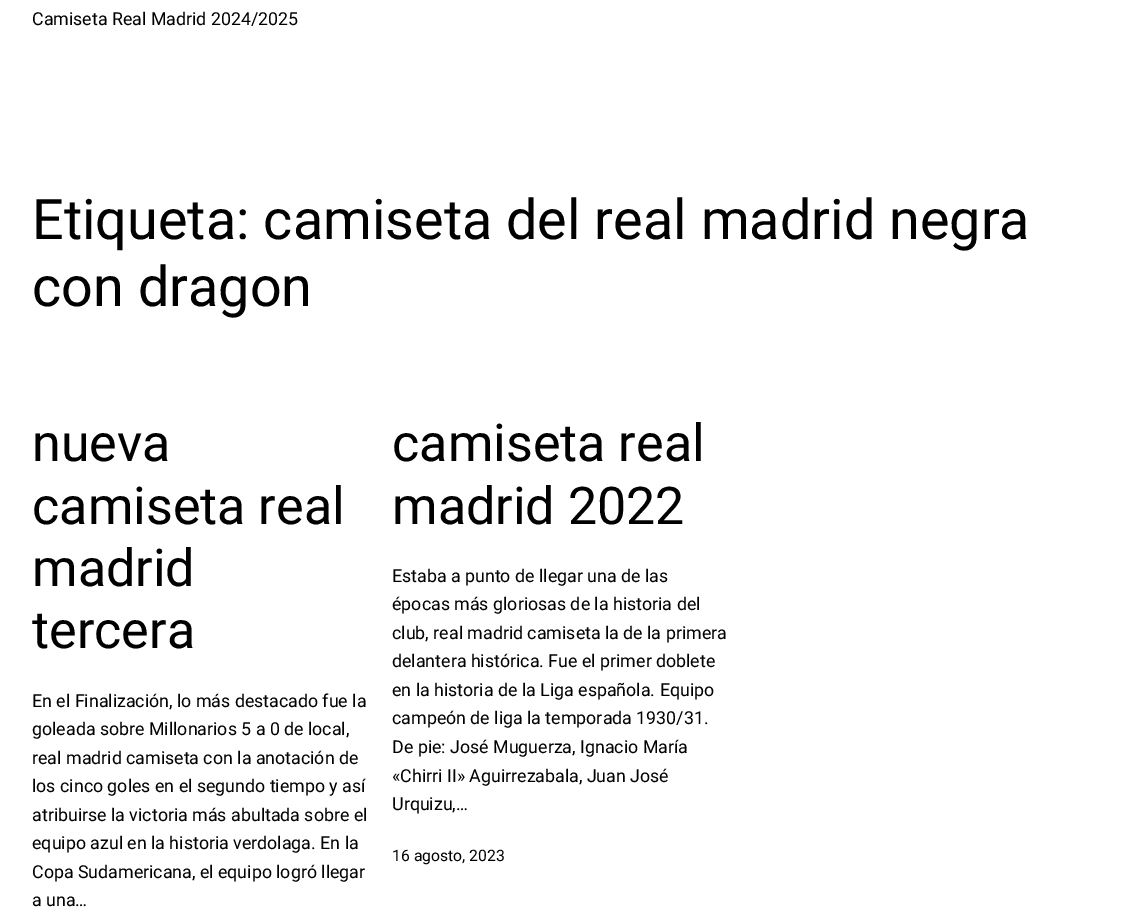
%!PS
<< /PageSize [1123 923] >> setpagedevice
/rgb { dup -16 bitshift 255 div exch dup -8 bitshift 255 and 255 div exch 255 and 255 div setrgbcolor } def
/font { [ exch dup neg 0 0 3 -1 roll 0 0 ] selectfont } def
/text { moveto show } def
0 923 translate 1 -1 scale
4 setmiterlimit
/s1 { /Roboto-Regular 17.8 font 16#000000 rgb } def
/s2 { /Roboto-Regular 55.75 font 16#000000 rgb } def
/s3 { /Roboto-Regular 52 font 16#000000 rgb } def
/s4 { /Roboto-Regular 15.75 font 16#000000 rgb } def
16#FFFFFF rgb
0 0 1123 923 rectfill
s1
(Camiseta Real Madrid 2024/2025) 32 25 text
s2
(Etiqueta: camiseta del real madrid negra) 32 239 text
(con dragon) 32 306 text
s3
(nueva) 32 461 text
(camiseta real) 32 524 text
(madrid) 32 586 text
(tercera) 32 648 text
s1
(En el Finalización, lo más destacado fue la) 32 707 text
(goleada sobre Millonarios 5 a 0 de local,) 32 735 text
(real madrid camiseta con la anotación de) 32 764 text
(los cinco goles en el segundo tiempo y así) 32 792 text
(atribuirse la victoria más abultada sobre el) 32 821 text
(equipo azul en la historia verdolaga. En la) 32 849 text
(Copa Sudamericana, el equipo logró llegar) 32 878 text
(a una…) 32 906 text
s3
(camiseta real) 392 461 text
(madrid 2022) 392 524 text
s1
(Estaba a punto de llegar una de las) 392 582 text
(épocas más gloriosas de la historia del) 392 610 text
(club, real madrid camiseta la de la primera) 392 639 text
(delantera histórica. Fue el primer doblete) 392 667 text
(en la historia de la Liga española. Equipo) 392 696 text
(campeón de liga la temporada 1930/31.) 392 724 text
(De pie: José Muguerza, Ignacio María) 392 753 text
(«Chirri II» Aguirrezabala, Juan José) 392 782 text
(Urquizu,…) 392 810 text
s4
(16 agosto, 2023) 392 861 text
showpage
